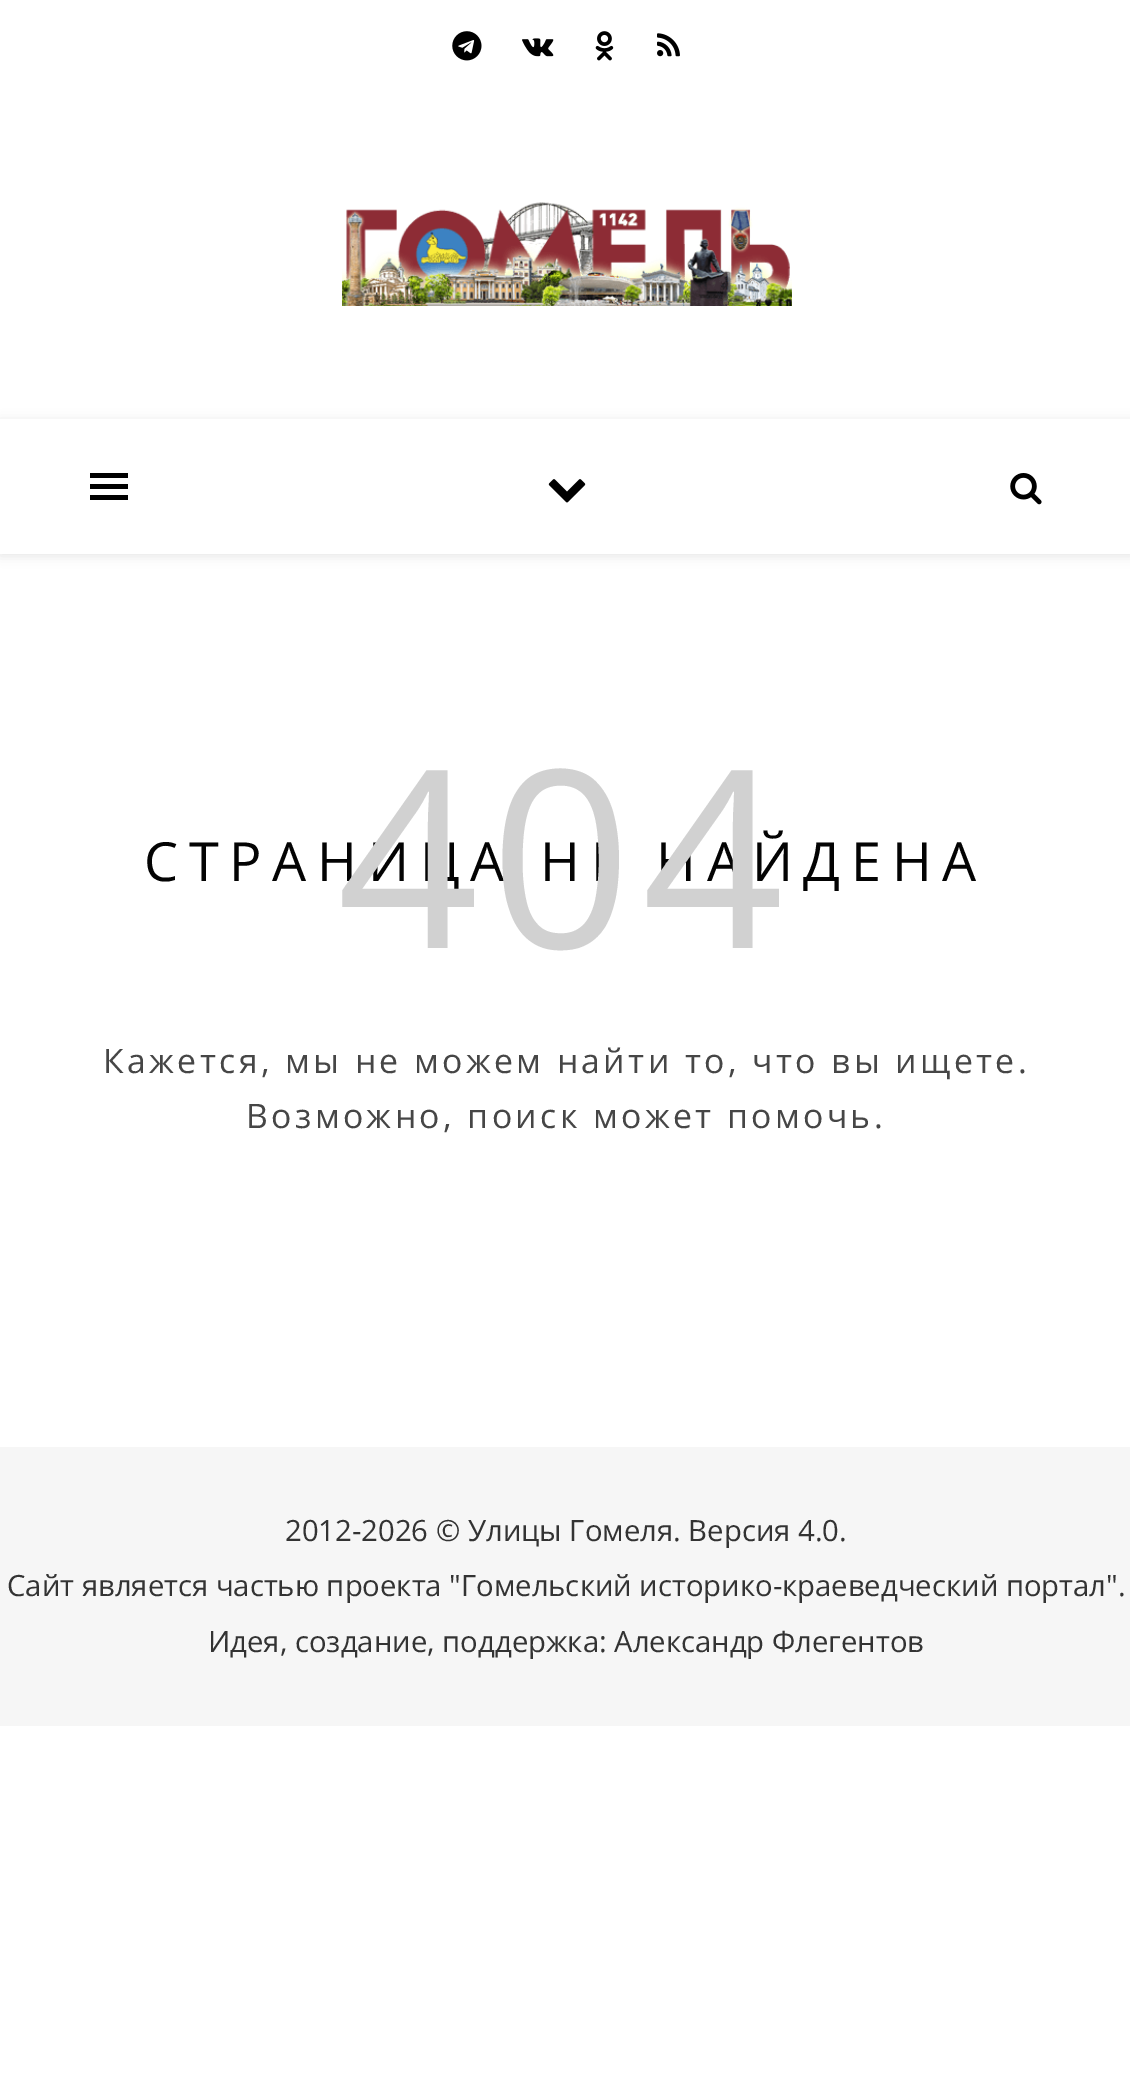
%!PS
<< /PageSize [1130 2079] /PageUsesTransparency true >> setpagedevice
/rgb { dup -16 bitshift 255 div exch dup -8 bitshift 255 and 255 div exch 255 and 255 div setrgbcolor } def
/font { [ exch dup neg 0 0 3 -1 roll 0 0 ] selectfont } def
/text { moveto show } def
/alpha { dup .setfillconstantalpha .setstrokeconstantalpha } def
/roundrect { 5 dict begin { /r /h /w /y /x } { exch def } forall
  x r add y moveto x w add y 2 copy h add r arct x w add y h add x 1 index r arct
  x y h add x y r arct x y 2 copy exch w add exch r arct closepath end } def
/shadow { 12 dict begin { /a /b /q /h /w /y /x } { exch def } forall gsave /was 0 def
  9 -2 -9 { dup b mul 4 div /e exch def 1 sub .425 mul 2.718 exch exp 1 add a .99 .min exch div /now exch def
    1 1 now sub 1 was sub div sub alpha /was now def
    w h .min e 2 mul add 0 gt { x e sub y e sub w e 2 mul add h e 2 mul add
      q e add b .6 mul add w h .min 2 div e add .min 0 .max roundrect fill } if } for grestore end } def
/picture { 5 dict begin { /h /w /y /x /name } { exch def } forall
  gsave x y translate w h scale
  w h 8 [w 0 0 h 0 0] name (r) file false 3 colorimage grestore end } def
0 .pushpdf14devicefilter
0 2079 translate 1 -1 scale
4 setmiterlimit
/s1 { /OpenSans-Regular 29.25 font 16#333333 rgb } def
16#FFFFFF rgb
0 0 1130 2079 rectfill
(pic1.raw) 452 31 30 30 picture
(pic2.raw) 522 38 32 19 picture
(pic3.raw) 595 31 19 30 picture
(pic4.raw) 657 33 23 24 picture
(pic5.raw) 342 202 450 104 picture
16#000000 rgb
0 421 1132 135 0 5.5 0.1 shadow
16#FFFFFF rgb
0 419 1130 135 rectfill
16#000000 rgb
90 473 38 5 rectfill
90 484 38 5 rectfill
90 495 38 5 rectfill
(pic6.raw) 548 479 38 24 picture
(pic7.raw) 1010 473 32 32 picture
/OpenSans-Regular 54 font
16#030303 rgb
144 881 moveto 10.75 0 (СТРАНИЦА НЕ НАЙДЕНА) ashow
/OpenSans-Regular 248 font
16#D1D1D1 rgb
337 948 moveto 10.75 0 (404) ashow
/OpenSans-Regular 33.75 font
16#464646 rgb
103 1073 moveto 3.4 0 (Кажется, мы не можем найти то, что вы ищете.) ashow
246 1128 moveto 3.4 0 (Возможно, поиск может помочь.) ashow
16#F6F6F6 rgb
0 1447 1130 279 rectfill
s1
(2012-2026 © Улицы Гомеля. Версия 4.0.) 285 1541 text
(Сайт является частью проекта "Гомельский историко-краеведческий портал".) 7 1596 text
(Идея, создание, поддержка: Александр Флегентов) 208 1652 text
.poppdf14devicefilter showpage
